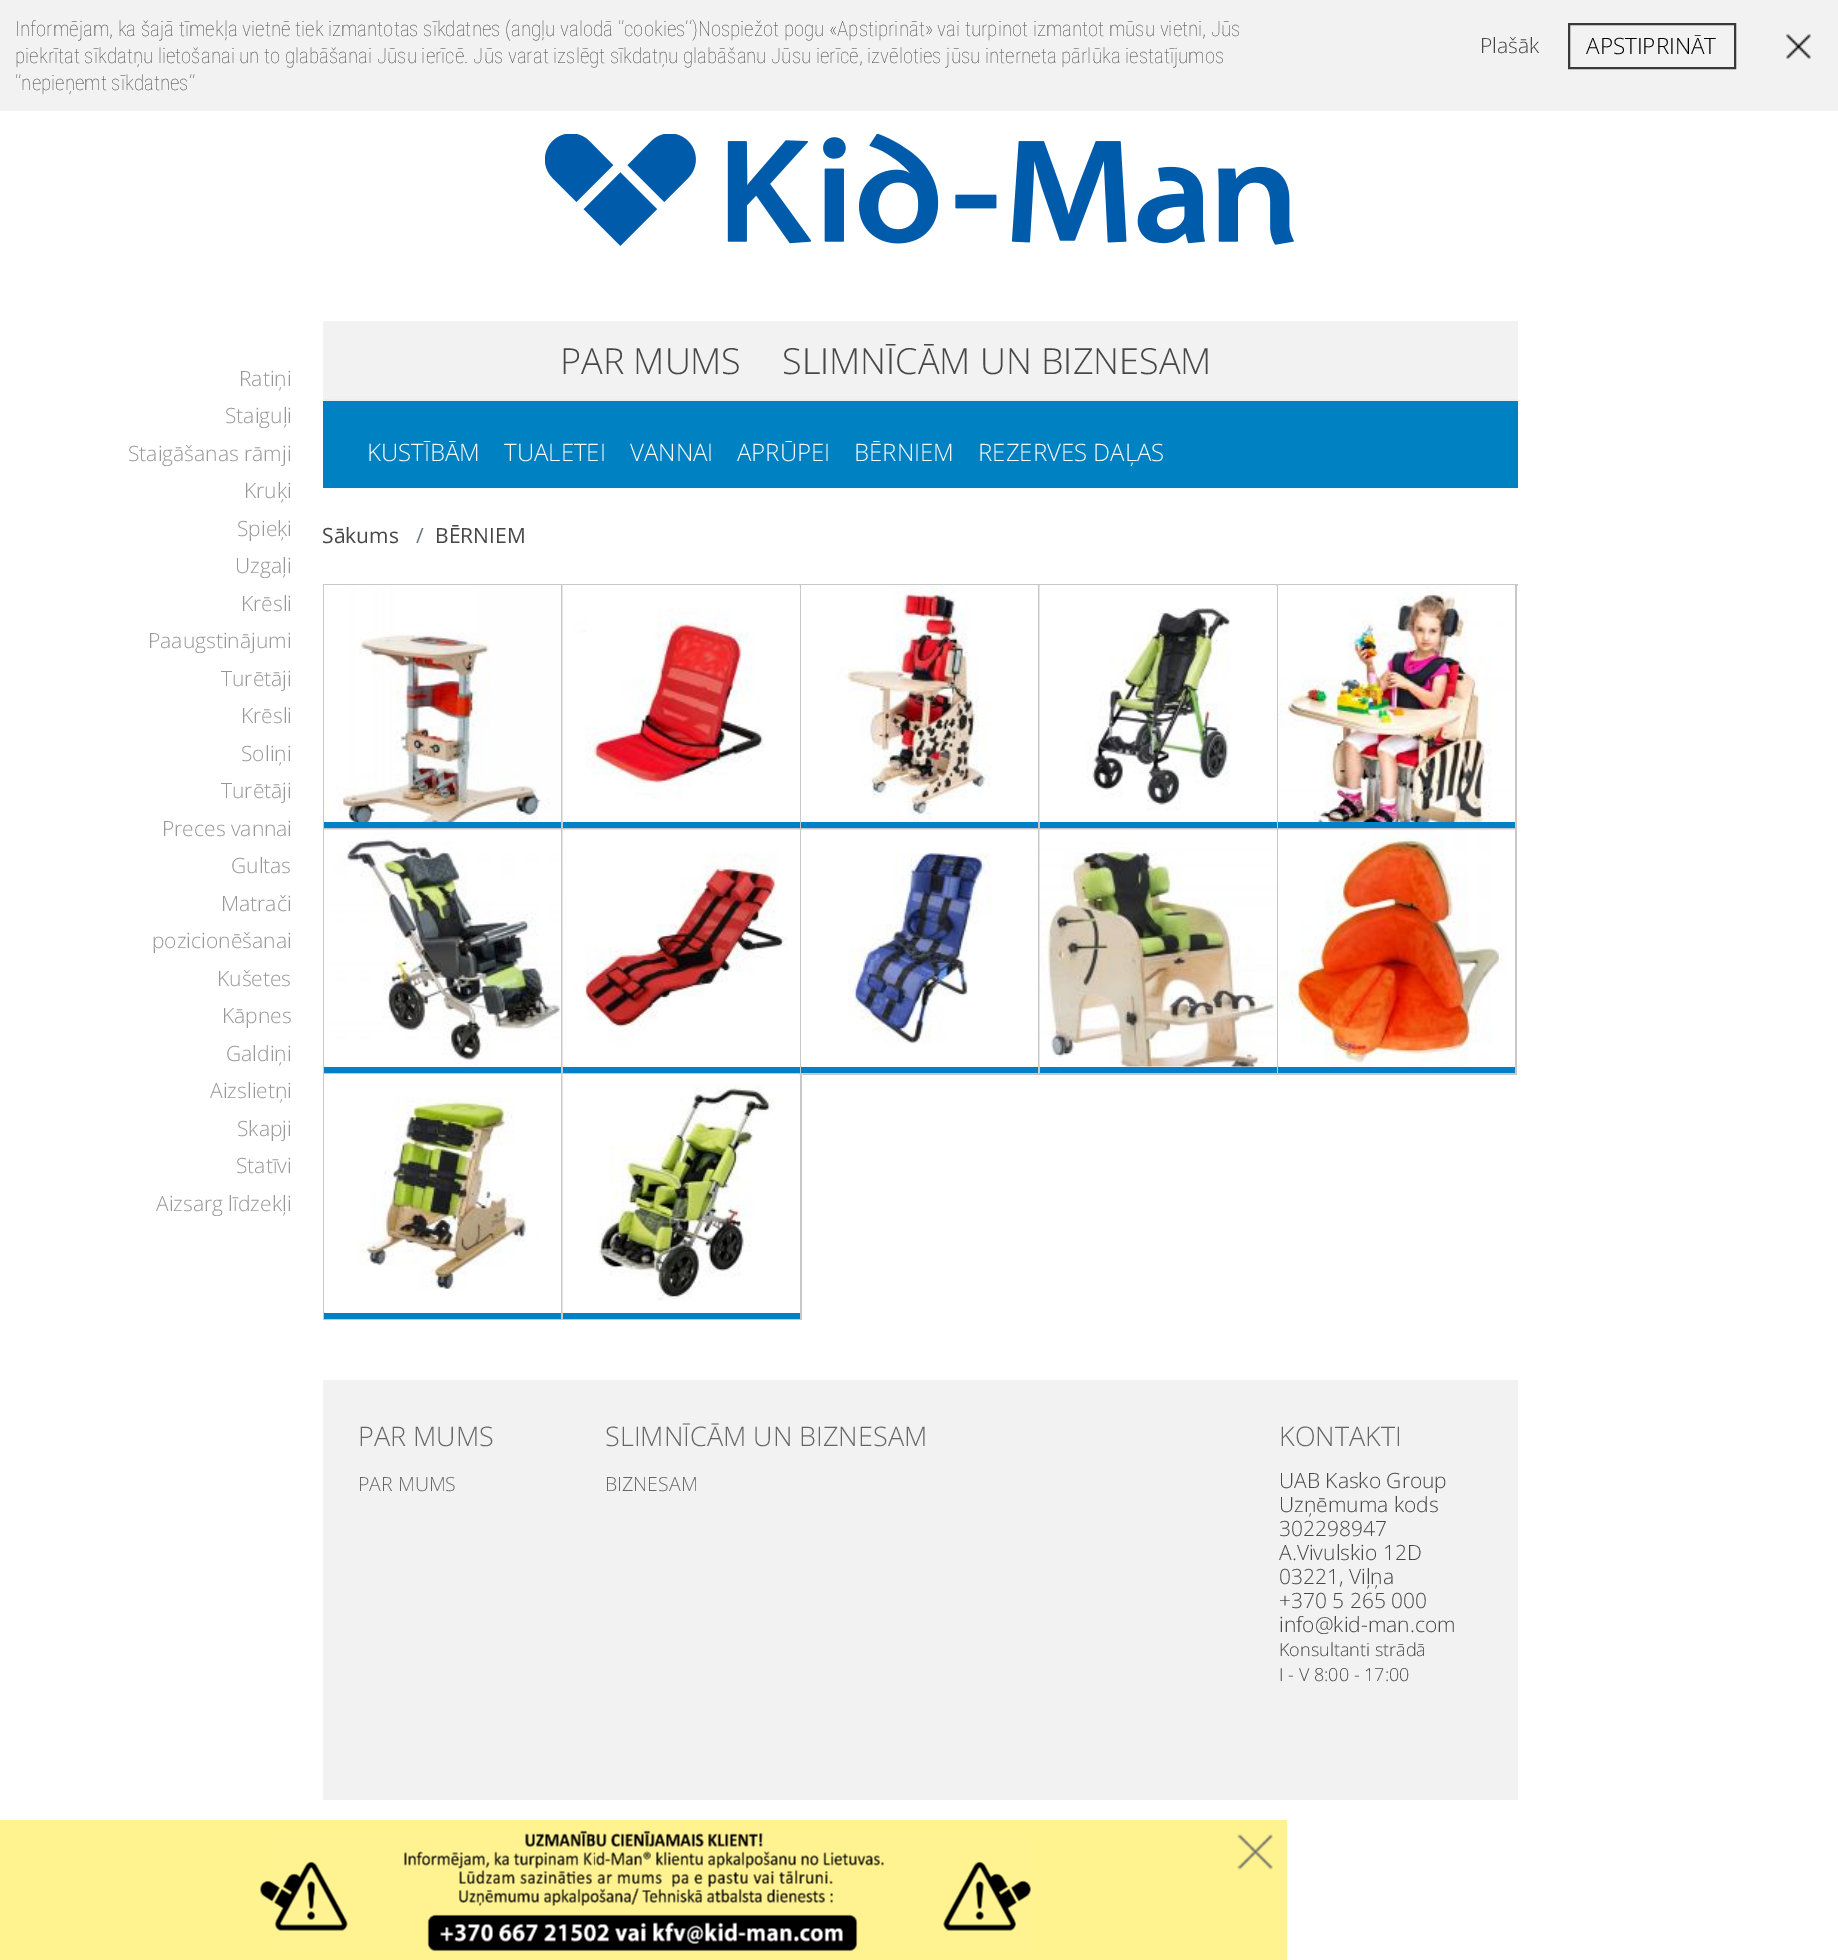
%!PS
<< /PageSize [1838 1960] >> setpagedevice
/rgb { dup -16 bitshift 255 div exch dup -8 bitshift 255 and 255 div exch 255 and 255 div setrgbcolor } def
/font { [ exch dup neg 0 0 3 -1 roll 0 0 ] selectfont } def
/text { moveto show } def
/picture { 5 dict begin { /h /w /y /x /name } { exch def } forall
  gsave x y translate w h scale
  w h 8 [w 0 0 h 0 0] name (r) file false 3 colorimage grestore end } def
0 1960 translate 1 -1 scale
4 setmiterlimit
/s1 { /RobotoCondensed-Thin 21 font 16#474747 rgb } def
/s2 { /OpenSans-Light 21 font 16#474747 rgb } def
/s3 { /OpenSans-Light 22.5 font 16#000000 rgb } def
/s4 { /OpenSans-Light 21 font 16#979797 rgb } def
/s5 { /OpenSans-Regular 21 font 16#474747 rgb } def
/s6 { /OpenSans-Regular 21 font 16#6C757D rgb } def
/s7 { /OpenSans-Light 36 font 16#474747 rgb } def
/s8 { /OpenSans-Light 24 font 16#FFFFFF rgb } def
/s9 { /OpenSans-Light 27 font 16#666666 rgb } def
/s10 { /OpenSans-Light 19.5 font 16#666666 rgb } def
/s11 { /OpenSans-Light 18 font 16#474747 rgb } def
16#FFFFFF rgb
0 0 1838 1960 rectfill
16#F2F2F2 rgb
0 0 1838 111 rectfill
s1
(Informējam, ka šajā tīmekļa vietnē tiek izmantotas sīkdatnes \(angļu valodā ‘’cookies’’\)Nospiežot pogu «Apstiprināt» vai turpinot izmantot mūsu vietni, Jūs) 15 36 text
(piekrītat sīkdatņu lietošanai un to glabāšanai Jūsu ierīcē. Jūs varat izslēgt sīkdatņu glabāšanu Jūsu ierīcē, izvēloties jūsu interneta pārlūka iestatījumos) 15 63 text
(‘’nepieņemt sīkdatnes’’) 15 90 text
s2
(Plašāk) 1480 53 text
16#3A3838 rgb
2 setlinewidth
1569 24 166 44 rectstroke
s3
(APSTIPRINĀT) 1586 54 text
(pic1.raw) 1786 34 25 25 picture
s4
(Ratiņi) 239 386 text
(Staiguļi) 225 423 text
(Staigāšanas rāmji) 128 461 text
(Kruķi) 244 498 text
(Spieķi) 237 536 text
(Uzgaļi) 235 573 text
(Krēsli) 241 611 text
(Paaugstinājumi) 148 648 text
(Turētāji) 221 686 text
(Krēsli) 241 723 text
(Soliņi) 241 761 text
(Turētāji) 221 798 text
(Preces vannai) 162 836 text
(Gultas) 231 873 text
(Matrači) 221 911 text
(pozicionēšanai) 152 948 text
(Kušetes) 217 986 text
(Kāpnes) 222 1023 text
(Galdiņi) 226 1061 text
(Aizslietņi) 210 1098 text
(Skapji) 237 1136 text
(Statīvi) 236 1173 text
(Aizsarg līdzekļi) 156 1211 text
s5
(Sākums) 322 543 text
s6
(/) 416 543 text
s5
(BĒRNIEM) 435 543 text
16#C8C8C8 rgb
323 584 1195 2 rectfill
323 584 2 736 rectfill
561 585 2 735 rectfill
324 828 239 2 rectfill
(pic2.raw) 324 585 237 237 picture
16#0081C6 rgb
324 822 237 6 rectfill
16#C8C8C8 rgb
800 585 1 245 rectfill
563 828 238 2 rectfill
(pic3.raw) 562 585 238 237 picture
16#0081C6 rgb
563 822 237 6 rectfill
16#C8C8C8 rgb
1038 585 2 489 rectfill
801 828 239 2 rectfill
(pic4.raw) 801 585 237 237 picture
16#0081C6 rgb
801 822 237 6 rectfill
16#C8C8C8 rgb
1277 585 1 245 rectfill
1040 828 238 2 rectfill
(pic5.raw) 1039 585 238 237 picture
16#0081C6 rgb
1040 822 237 6 rectfill
16#C8C8C8 rgb
1515 585 2 489 rectfill
1278 828 239 2 rectfill
(pic6.raw) 1278 585 237 237 picture
16#0081C6 rgb
1278 822 237 6 rectfill
16#C8C8C8 rgb
324 1073 239 1 rectfill
(pic7.raw) 324 829 237 238 picture
16#0081C6 rgb
324 1067 237 6 rectfill
16#C8C8C8 rgb
800 830 2 244 rectfill
563 1073 477 2 rectfill
(pic8.raw) 562 829 238 238 picture
16#0081C6 rgb
563 1067 237 6 rectfill
(pic9.raw) 801 829 237 238 picture
801 1067 237 6 rectfill
16#C8C8C8 rgb
1277 830 2 244 rectfill
1040 1073 477 2 rectfill
(pic10.raw) 1039 829 238 238 picture
16#0081C6 rgb
1040 1067 237 6 rectfill
(pic11.raw) 1278 829 237 238 picture
1278 1067 237 6 rectfill
16#C8C8C8 rgb
324 1319 239 1 rectfill
(pic12.raw) 324 1074 237 239 picture
16#0081C6 rgb
324 1313 237 6 rectfill
16#C8C8C8 rgb
800 1074 2 246 rectfill
563 1319 238 1 rectfill
(pic13.raw) 562 1074 238 239 picture
16#0081C6 rgb
563 1313 237 6 rectfill
(pic14.raw) 545 134 749 112 picture
16#F2F2F2 rgb
323 321 1195 78 rectfill
16#EDEDED rgb
323 399 1195 2 rectfill
s7
(PAR MUMS) 560 374 text
(SLIMNĪCĀM UN BIZNESAM) 782 374 text
16#0081C1 rgb
323 401 1195 87 rectfill
s8
(KUSTĪBĀM) 367 461 text
(TUALETEI) 504 461 text
(VANNAI) 630 461 text
(APRŪPEI) 737 461 text
(BĒRNIEM) 854 461 text
(REZERVES DAĻAS) 978 461 text
16#F2F2F2 rgb
323 1380 1195 420 rectfill
s9
(PAR MUMS) 358 1446 text
s10
(PAR MUMS) 358 1491 text
s9
(SLIMNĪCĀM UN BIZNESAM) 605 1446 text
s10
(BIZNESAM) 605 1491 text
s9
(KONTAKTI) 1279 1446 text
s2
(UAB Kasko Group) 1279 1488 text
(Uzņēmuma kods) 1279 1512 text
(302298947) 1279 1536 text
(A.Vivulskio 12D) 1279 1560 text
(03221, Viļņa) 1279 1584 text
(+370 5 265 000) 1279 1608 text
(info@kid-man.com) 1279 1632 text
s11
(Konsultanti strādā) 1279 1656 text
(I - V 8:00 - 17:00) 1279 1681 text
16#FFF390 rgb
0 1820 1287 140 rectfill
(pic15.raw) 260 1830 771 122 picture
(pic16.raw) 1237 1834 36 36 picture
showpage
